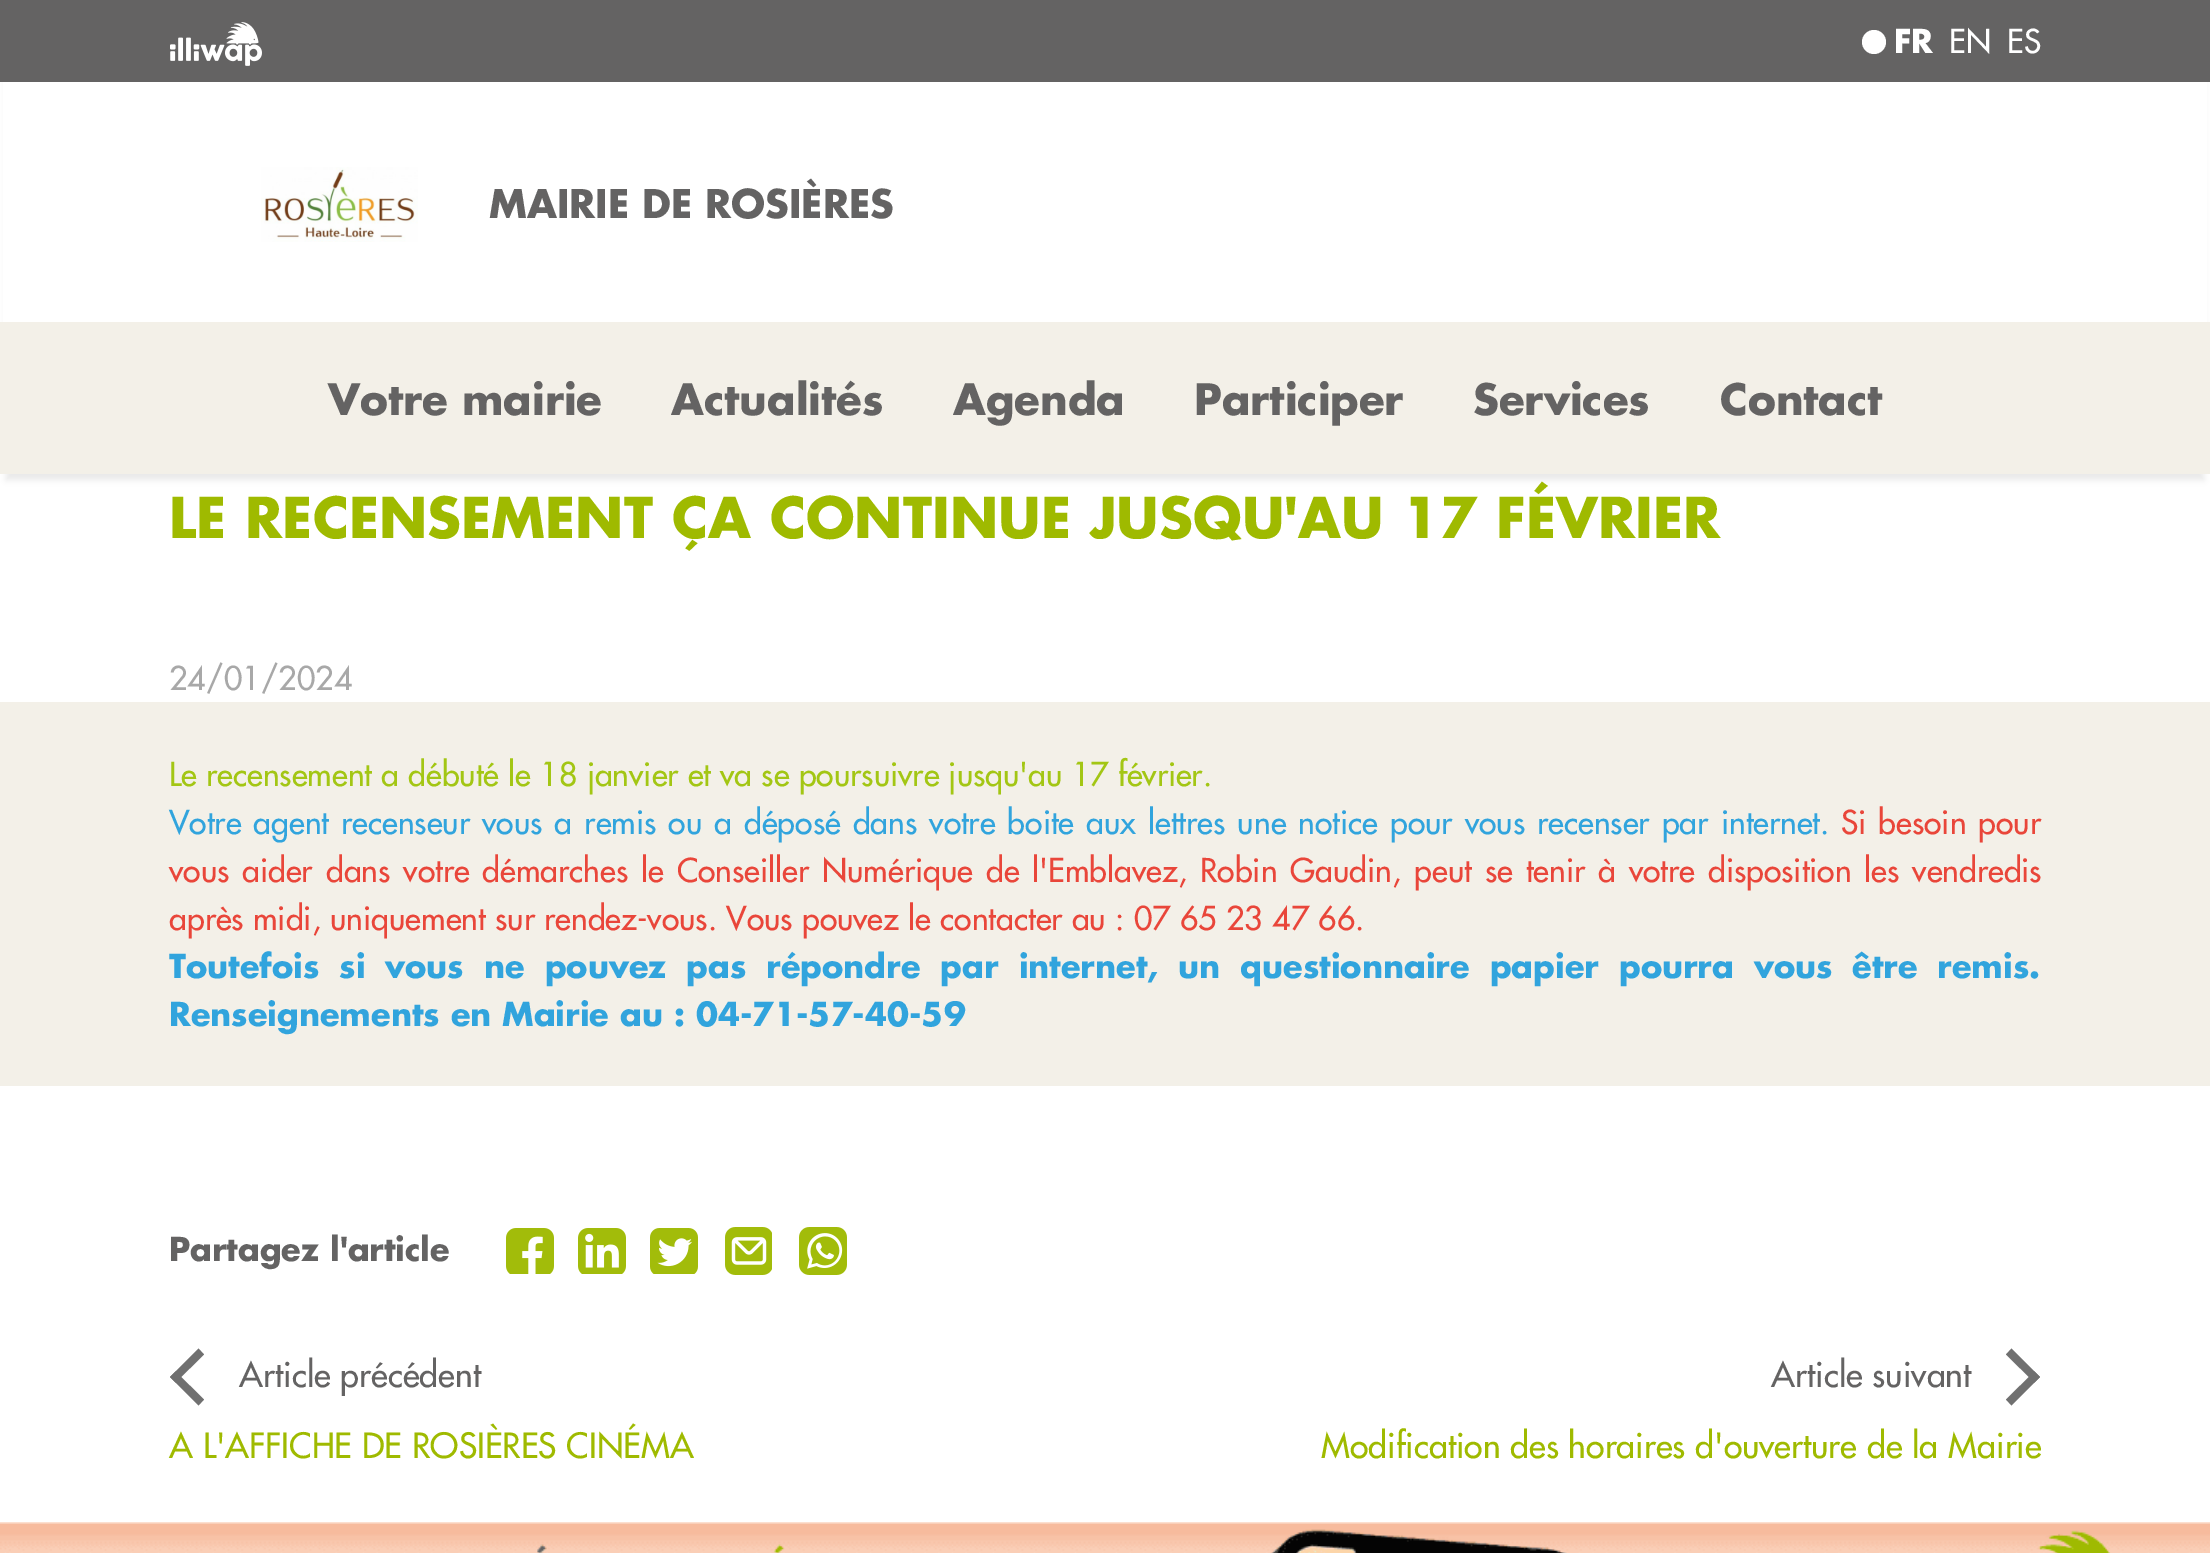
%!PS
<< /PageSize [2210 1553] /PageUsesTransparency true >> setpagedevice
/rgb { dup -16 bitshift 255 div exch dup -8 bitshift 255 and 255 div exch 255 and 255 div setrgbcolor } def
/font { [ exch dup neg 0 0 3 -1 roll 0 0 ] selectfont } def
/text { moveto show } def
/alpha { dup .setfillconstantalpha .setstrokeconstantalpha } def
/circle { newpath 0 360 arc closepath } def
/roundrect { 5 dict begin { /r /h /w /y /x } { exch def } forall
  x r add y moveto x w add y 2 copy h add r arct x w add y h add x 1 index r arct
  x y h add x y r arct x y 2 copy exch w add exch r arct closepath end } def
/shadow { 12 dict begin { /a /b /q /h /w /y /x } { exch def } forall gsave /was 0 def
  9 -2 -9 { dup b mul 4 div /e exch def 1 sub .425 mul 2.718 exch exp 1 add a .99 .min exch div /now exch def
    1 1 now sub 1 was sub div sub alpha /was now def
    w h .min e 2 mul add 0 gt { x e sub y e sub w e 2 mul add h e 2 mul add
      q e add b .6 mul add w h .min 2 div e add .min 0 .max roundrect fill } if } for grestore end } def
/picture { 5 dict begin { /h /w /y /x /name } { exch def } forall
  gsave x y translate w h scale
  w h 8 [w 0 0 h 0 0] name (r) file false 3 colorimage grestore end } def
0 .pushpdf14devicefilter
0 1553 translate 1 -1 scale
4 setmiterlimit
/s1 { /Futura-Bold 32 font 16#FFFFFF rgb } def
/s2 { /Futura-Regular 32 font 16#FFFFFF rgb } def
/s3 { /Futura-Bold 38.4 font 16#646363 rgb } def
/s4 { /Futura-Bold 42 font 16#646363 rgb } def
/s5 { /Futura-Bold 54.85 font 16#9FBA00 rgb } def
/s6 { /Futura-Regular 32 font 16#A8A8A8 rgb } def
/s7 { /Futura-Regular 32 font 16#A3C614 rgb } def
/s8 { /Futura-Regular 32 font 16#E9463A rgb } def
/s9 { /Futura-Bold 32 font 16#31A4DD rgb } def
/s10 { /Futura-Bold 32 font 16#646363 rgb } def
/s11 { /Futura-Regular 33.95 font 16#646363 rgb } def
/s12 { /Futura-Regular 33.95 font 16#9FBA00 rgb } def
16#FFFFFF rgb
0 0 2210 1553 rectfill
16#000000 rgb
6 18 2198 462 0 3 0.08 shadow
16#FFFFFF rgb
3 82 2204 240 rectfill
16#646363 rgb
0 0 2210 82 rectfill
(pic1.raw) 170 22 92 44 picture
16#FFFFFF rgb
1874 42 12 circle fill
s1
(FR) 1894 53 text
s2
(EN) 1949 53 text
(ES) 2007 53 text
(pic2.raw) 261 167 157 75 picture
s3
(MAIRIE DE ROSIÈRES) 489 218 text
16#F3F0E8 rgb
0 322 2210 152 rectfill
s4
(Votre mairie) 328 415 text
(Actualités) 671 415 text
(Agenda) 953 415 text
(Participer) 1194 415 text
(Services) 1473 415 text
(Contact) 1720 415 text
s5
(LE RECENSEMENT ÇA CONTINUE JUSQU'AU 17 FÉVRIER) 169 538 text
s6
(24/01/2024) 169 690 text
16#F3F0E8 rgb
0 702 2210 384 rectfill
s7
(Le recensement a débuté le 18 janvier et va se poursuivre jusqu'au 17 février.) 169 786 text
16#31A4DD rgb
169 834 moveto 2.9 0 32 (Votre agent recenseur vous a remis ou a déposé dans votre boite aux lettres une notice pour vous recenser par internet.) widthshow
16#E9463A rgb
1841 834 moveto 2.9 0 32 (Si besoin pour) widthshow
169 882 moveto 3.75 0 32 (vous aider dans votre démarches le Conseiller Numérique de l'Emblavez, Robin Gaudin, peut se tenir à votre disposition les vendredis) widthshow
(après midi, uniquement sur rendez-vous. Vous pouvez le contacter au : 07 65 23 47 66.) 169 930 text
/Futura-Bold 32 font
16#31A4DD rgb
169 978 moveto 9.1 0 32 (Toutefois si vous ne pouvez pas répondre par internet, un questionnaire papier pourra vous être remis.) widthshow
(Renseignements en Mairie au : 04-71-57-40-59) 169 1026 text
s10
(Partagez l'article) 169 1261 text
(pic3.raw) 506 1228 48 46 picture
(pic4.raw) 578 1228 48 46 picture
(pic5.raw) 650 1228 48 46 picture
(pic6.raw) 725 1227 47 48 picture
(pic7.raw) 799 1227 48 48 picture
16#707070 rgb
198.5 1405.5 moveto 170 1377 lineto 175.5 1371.5 lineto 204 1399.5 lineto closepath fill
170 1377 moveto 198.5 1348.5 lineto 204 1354.5 lineto 175.5 1382.5 lineto closepath fill
s11
(Article précédent) 239 1387 text
16#707070 rgb
2011.5 1348.5 moveto 2040 1377 lineto 2034.5 1382.5 lineto 2006 1354.5 lineto closepath fill
2040 1377 moveto 2011.5 1405.5 lineto 2006 1399.5 lineto 2034.5 1371.5 lineto closepath fill
s11
(Article suivant) 1771 1387 text
s12
(A L'AFFICHE DE ROSIÈRES CINÉMA) 169 1458 text
(Modification des horaires d'ouverture de la Mairie) 1321 1458 text
(pic8.raw) 0 1522 2210 31 picture
.poppdf14devicefilter showpage
